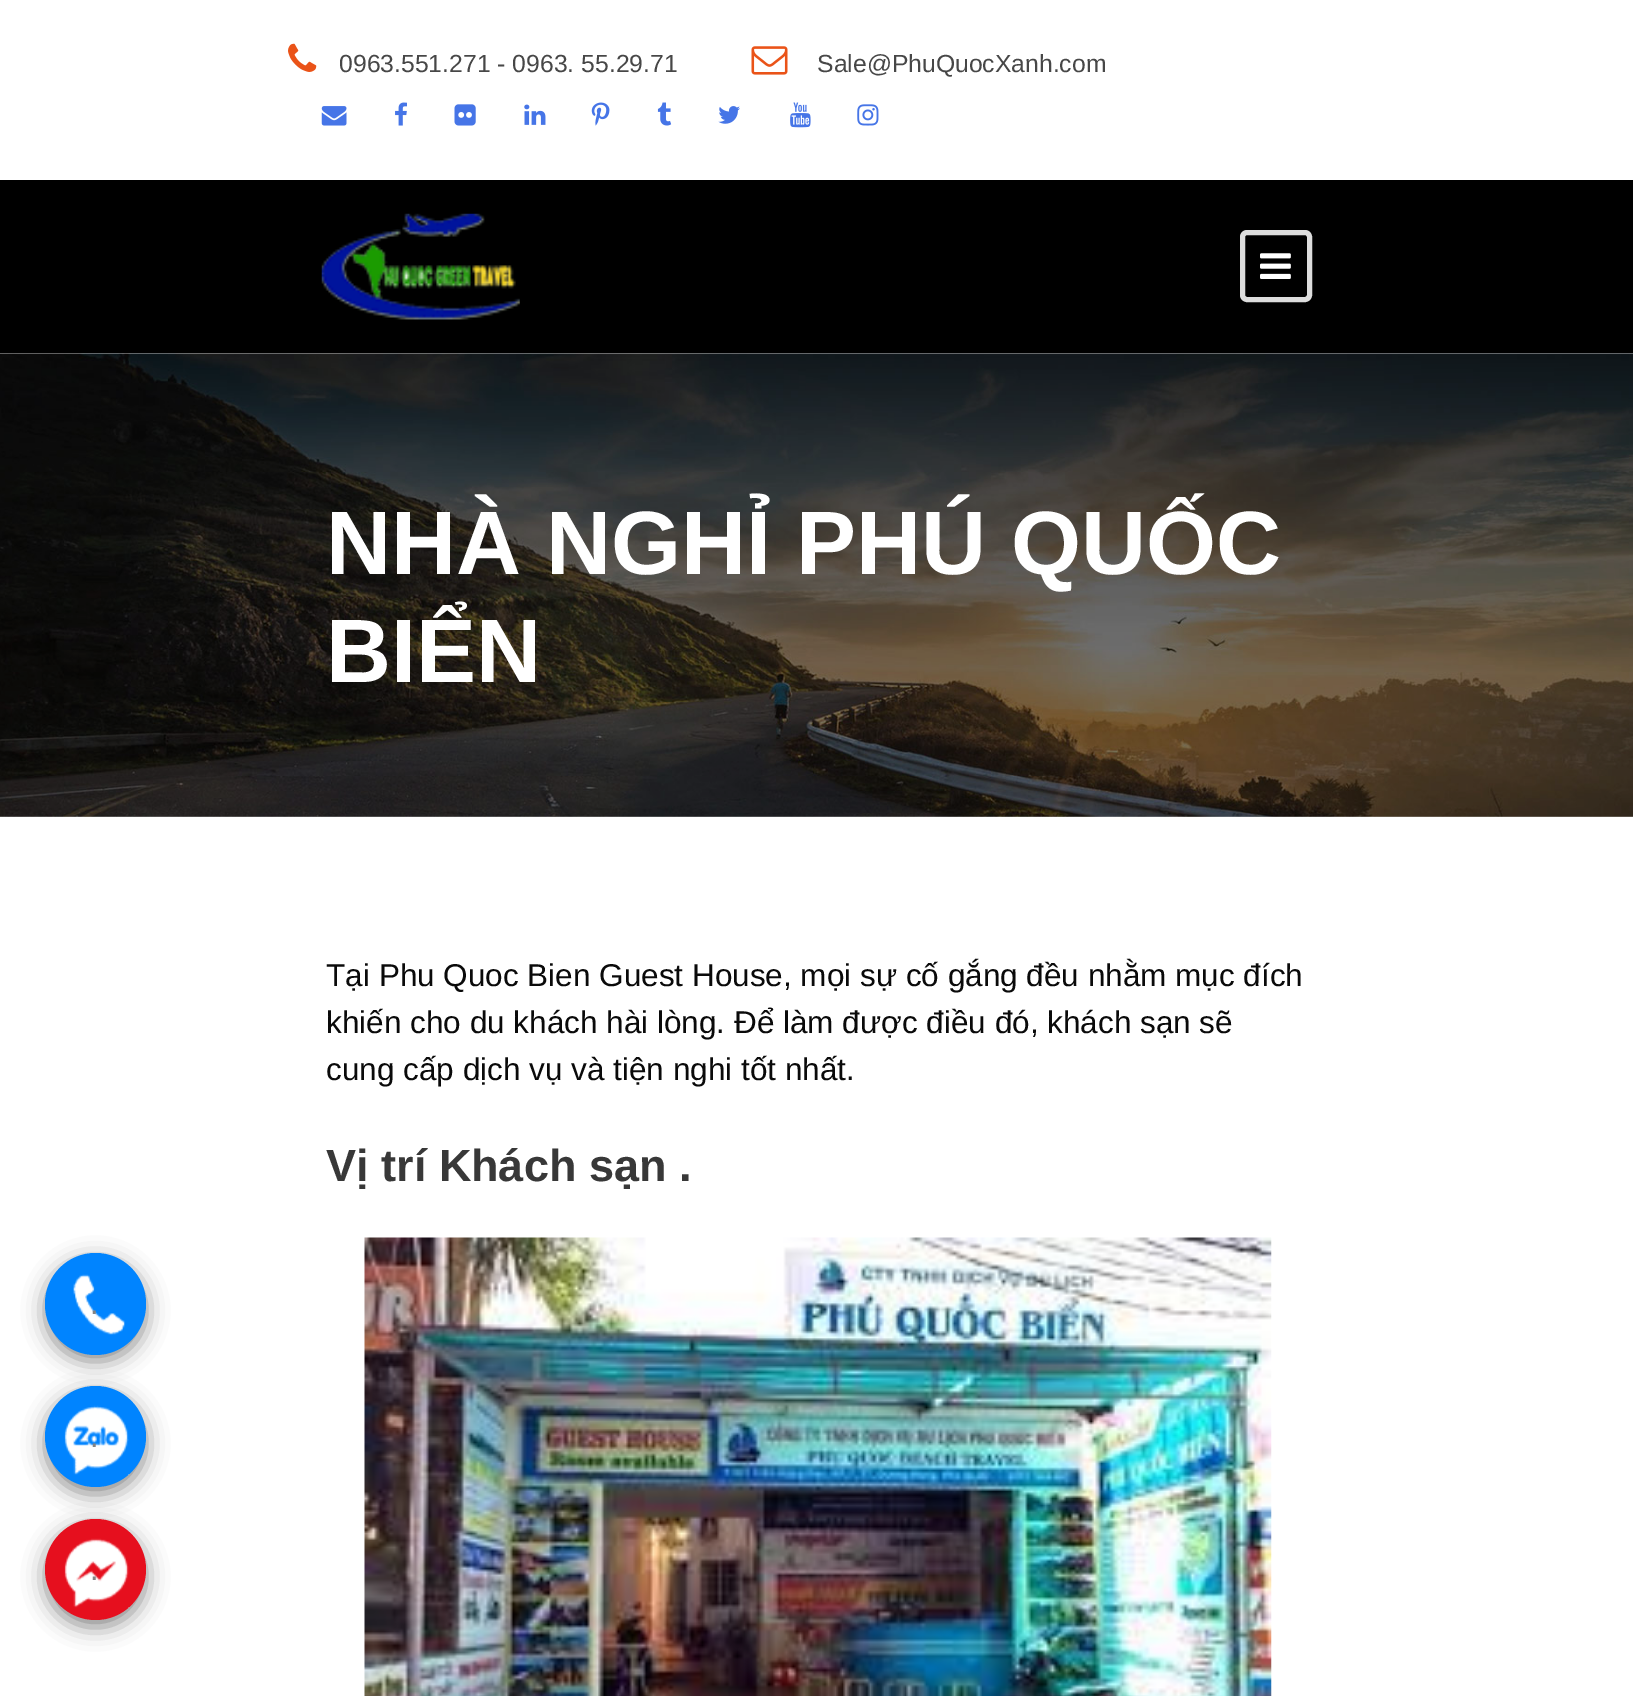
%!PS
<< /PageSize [1633 1696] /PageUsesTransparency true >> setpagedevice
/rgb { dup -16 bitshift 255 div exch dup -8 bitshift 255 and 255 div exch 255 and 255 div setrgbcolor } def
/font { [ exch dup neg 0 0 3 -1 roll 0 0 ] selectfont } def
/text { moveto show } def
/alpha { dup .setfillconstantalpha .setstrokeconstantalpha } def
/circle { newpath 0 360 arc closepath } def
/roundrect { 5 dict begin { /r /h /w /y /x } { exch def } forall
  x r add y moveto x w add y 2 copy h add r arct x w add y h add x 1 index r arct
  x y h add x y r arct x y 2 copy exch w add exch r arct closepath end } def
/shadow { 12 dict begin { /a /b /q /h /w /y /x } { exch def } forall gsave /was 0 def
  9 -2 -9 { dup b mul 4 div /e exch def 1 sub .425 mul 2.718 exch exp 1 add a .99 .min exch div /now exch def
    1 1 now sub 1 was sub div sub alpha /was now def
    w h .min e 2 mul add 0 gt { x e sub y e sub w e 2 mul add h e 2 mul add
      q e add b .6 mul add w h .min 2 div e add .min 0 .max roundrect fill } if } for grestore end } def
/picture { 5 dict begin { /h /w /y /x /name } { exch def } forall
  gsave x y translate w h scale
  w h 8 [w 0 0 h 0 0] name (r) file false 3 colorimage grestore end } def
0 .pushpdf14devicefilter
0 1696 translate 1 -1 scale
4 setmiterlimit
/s1 { /LiberationSans-Regular 24.75 font 16#474747 rgb } def
/s2 { /LiberationSans-Bold 90 font 16#FFFFFF rgb } def
/s3 { /LiberationSans-Regular 31.5 font 16#0A0A0A rgb } def
/s4 { /LiberationSans-Bold 45 font 16#383838 rgb } def
16#000000 rgb
0 0 1633 1696 rectfill
16#FFFFFF rgb
0 0 1633 180 rectfill
(pic1.raw) 288 43 29 29 picture
s1
(0963.551.271 - 0963. 55.29.71) 339 72 text
(pic2.raw) 751 46 37 29 picture
(Sale@PhuQuocXanh.com) 817 72 text
(pic3.raw) 321 106 26 20 picture
(pic4.raw) 395 102 12 24 picture
(pic5.raw) 454 104 22 22 picture
(pic6.raw) 524 104 22 21 picture
(pic7.raw) 591 102 19 24 picture
(pic8.raw) 657 102 15 24 picture
(pic9.raw) 718 106 22 18 picture
(pic10.raw) 790 102 21 26 picture
(pic11.raw) 857 104 22 22 picture
(pic12.raw) 321 213 199 107 picture
16#DDDDDD rgb
5 setlinewidth
1242.5 232.5 67 67 4.5 roundrect stroke
(pic13.raw) 1260 253 31 26 picture
16#FFFFFF rgb
0 353 1633 1343 rectfill
(pic14.raw) 0 353 1633 464 picture
0.18 alpha
16#000000 rgb
0 353 1633 464 rectfill
1 alpha
s2
(NHÀ NGHỈ PHÚ QUỐC) 326 574 text
(BIỂN) 326 682 text
s3
(Tại Phu Quoc Bien Guest House, mọi sự cố gắng đều nhằm mục đích) 326 986 text
(khiến cho du khách hài lòng. Để làm được điều đó, khách sạn sẽ) 326 1033 text
(cung cấp dịch vụ và tiện nghi tốt nhất.) 326 1080 text
s4
(Vị trí Khách sạn .) 326 1181 text
(pic15.raw) 364 1237 908 459 picture
16#888888 rgb
45 1260 101 101 50.5 11 1 shadow
16#0084FF rgb
45 1253 101 102 50.5 roundrect fill
(pic16.raw) 73 1274 52 61 picture
/LiberationSans-Regular 31.5 font
16#838383 rgb
90 1314 moveto 2 0 (.) ashow
16#888888 rgb
45 1393 101 101 50.5 11 1 shadow
16#0084FF rgb
95.5 1436.5 50.5 circle fill
(pic17.raw) 64 1405 65 70 picture
16#838383 rgb
90 1447 moveto 2 0 (.) ashow
16#888888 rgb
45 1526 101 101 50.5 11 1 shadow
16#E60F1E rgb
95.5 1569.5 50.5 circle fill
(pic18.raw) 64 1538 65 70 picture
16#838383 rgb
90 1580 moveto 2 0 (.) ashow
.poppdf14devicefilter showpage
